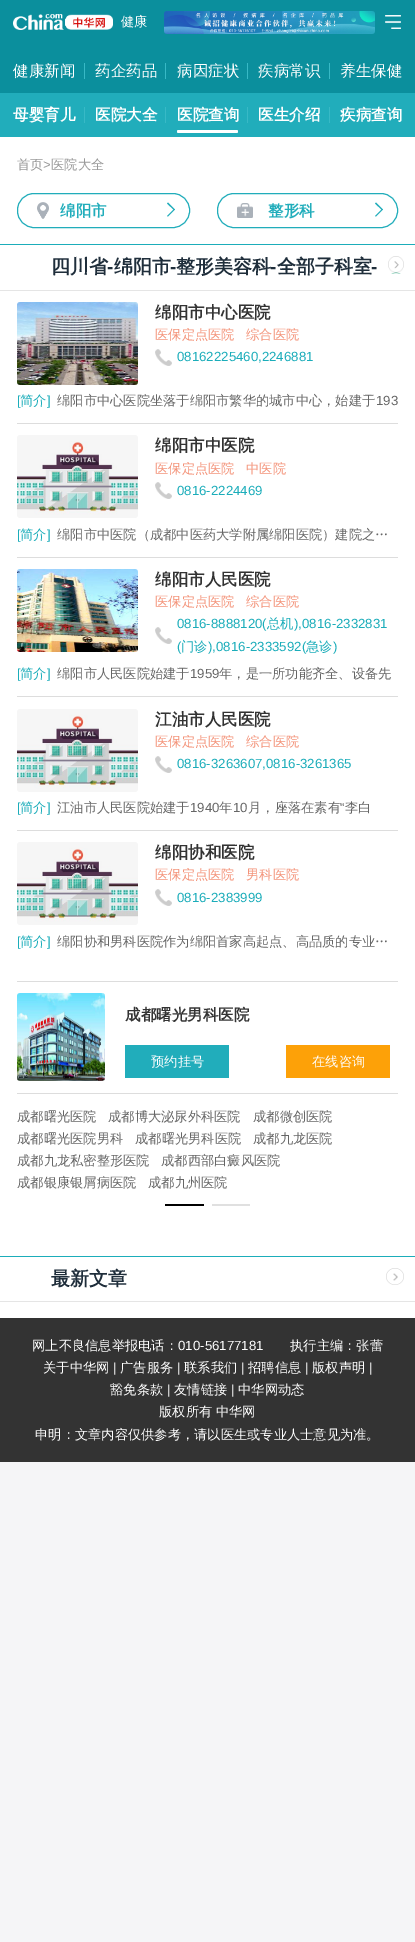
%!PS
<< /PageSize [415 1942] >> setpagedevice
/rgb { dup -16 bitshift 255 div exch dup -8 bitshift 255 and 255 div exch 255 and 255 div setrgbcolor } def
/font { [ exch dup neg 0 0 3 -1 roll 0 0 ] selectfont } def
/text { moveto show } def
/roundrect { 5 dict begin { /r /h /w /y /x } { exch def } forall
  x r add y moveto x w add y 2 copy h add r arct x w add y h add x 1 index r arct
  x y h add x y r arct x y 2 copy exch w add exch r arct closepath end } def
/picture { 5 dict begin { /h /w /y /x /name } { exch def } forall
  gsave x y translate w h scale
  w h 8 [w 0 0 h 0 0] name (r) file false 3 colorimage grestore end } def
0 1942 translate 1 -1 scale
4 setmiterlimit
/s1 { /WenQuanYiZenHei-Medium 13.25 font 16#FFFFFF rgb } def
/s2 { /WenQuanYiZenHei-Medium 15.5 font 16#FFFFFF rgb } def
/s3 { /WenQuanYiZenHei-Bold 15.5 font 16#FFFFFF rgb } def
/s4 { /WenQuanYiZenHei-Medium 13.25 font 16#999999 rgb } def
/s5 { /LiberationSans-Regular 13.25 font 16#999999 rgb } def
/s6 { /WenQuanYiZenHei-Bold 15.5 font 16#21ADBB rgb } def
/s7 { /WenQuanYiZenHei-Bold 19 font 16#1F2E3B rgb } def
/s8 { /LiberationSans-Bold 19 font 16#1F2E3B rgb } def
/s9 { /WenQuanYiZenHei-Bold 16.5 font 16#333333 rgb } def
/s10 { /WenQuanYiZenHei-Medium 13.25 font 16#F49379 rgb } def
/s11 { /LiberationSans-Regular 13.25 font 16#1BADBA rgb } def
/s12 { /WenQuanYiZenHei-Medium 13.25 font 16#1BADBA rgb } def
/s13 { /WenQuanYiZenHei-Medium 13.25 font 16#666666 rgb } def
/s14 { /LiberationSans-Regular 13.25 font 16#666666 rgb } def
/s15 { /WenQuanYiZenHei-Bold 15.5 font 16#333333 rgb } def
/s16 { /LiberationSans-Regular 13.25 font 16#FFFFFF rgb } def
16#F5F5F7 rgb
0 0 415 1942 rectfill
16#FFFFFF rgb
0 137 415 1181 rectfill
16#0B8F9D rgb
0 0 415 93 rectfill
(pic1.raw) 13 14 100 16 picture
s1
(健康) 121 26 text
(pic2.raw) 164 11 211 23 picture
(pic3.raw) 385 15 16 14 picture
s2
(健康新闻) 13 76 text
16#38B9C6 rgb
84 63 1 16 rectfill
s2
(药企药品) 95 76 text
16#38B9C6 rgb
165 63 1 16 rectfill
s2
(病因症状) 177 76 text
16#38B9C6 rgb
247 63 1 16 rectfill
s2
(疾病常识) 258 76 text
16#38B9C6 rgb
329 63 1 16 rectfill
s2
(养生保健) 340 76 text
16#21ADBB rgb
0 93 415 44 rectfill
s3
(母婴育儿) 13 120 text
16#38B9C6 rgb
84 107 1 16 rectfill
s3
(医院大全) 95 120 text
16#38B9C6 rgb
165 107 1 16 rectfill
s3
(医院查询) 177 120 text
177 130 61 3 1.5 roundrect fill
16#38B9C6 rgb
247 107 1 16 rectfill
s3
(医生介绍) 258 120 text
16#38B9C6 rgb
329 107 1 16 rectfill
s3
(疾病查询) 340 120 text
s4
(首页) 17 169 text
s5
(>) 43 169 text
s4
(医院大全) 51 169 text
(pic4.raw) 37 202 12 17 picture
16#21ADBB rgb
17.5 193.5 172 34 16.5 roundrect stroke
s6
(绵阳市) 60 216 text
168 202.5 moveto 175 209.5 lineto 174 210 lineto 167 203.5 lineto closepath fill
174 209 moveto 175 209.5 lineto 168 216.5 lineto 167 216 lineto closepath fill
(pic5.raw) 237 203 16 15 picture
217.5 193.5 180 34 16.5 roundrect stroke
(整形科) 268 216 text
376 202.5 moveto 383 209.5 lineto 382 210 lineto 375 203.5 lineto closepath fill
382 209 moveto 383 209.5 lineto 376 216.5 lineto 375 216 lineto closepath fill
16#1BADBA rgb
0 244 415 1 rectfill
16#E5E5E5 rgb
0 290 415 1 rectfill
s7
(四川省) 51 273 text
s8
(-) 107 273 text
s7
(绵阳市) 114 273 text
s8
(-) 170 273 text
s7
(整形美容科) 176 273 text
s8
(-) 270 273 text
s7
(全部子科室) 277 273 text
s8
(-) 371 273 text
(pic6.raw) 388 256 16 18 picture
16#DDDDDD rgb
17 423 381 1 rectfill
(pic7.raw) 17 302 121 83 picture
s9
(绵阳市中心医院) 155 318 text
s10
(医保定点医院) 155 339 text
(综合医院) 246 339 text
(pic8.raw) 155 349 17 17 picture
s11
(08162225460,2246881) 177 361 text
([) 17 405 text
s12
(简介) 20 405 text
s11
(]) 47 405 text
s13
(绵阳市中心医院坐落于绵阳市繁华的城市中心，始建于) 57 405 text
s14
(193) 376 405 text
16#DDDDDD rgb
17 557 381 1 rectfill
(pic9.raw) 17 435 121 83 picture
s9
(绵阳市中医院) 155 451 text
s10
(医保定点医院) 155 473 text
(中医院) 246 473 text
(pic8.raw) 155 482 17 17 picture
s11
(0816-2224469) 177 495 text
([) 17 539 text
s12
(简介) 20 539 text
s11
(]) 47 539 text
s13
(绵阳市中医院（成都中医药大学附属绵阳医院）建院之…) 57 539 text
16#DDDDDD rgb
17 696 381 1 rectfill
(pic10.raw) 17 569 121 83 picture
s9
(绵阳市人民医院) 155 585 text
s10
(医保定点医院) 155 606 text
(综合医院) 246 606 text
(pic8.raw) 155 627 17 17 picture
s11
(0816-8888120\() 177 628 text
s12
(总机) 267 628 text
s11
(\),0816-2332831) 294 628 text
(\() 177 651 text
s12
(门诊) 181 651 text
s11
(\),0816-2333592\() 208 651 text
s12
(急诊) 306 651 text
s11
(\)) 333 651 text
([) 17 678 text
s12
(简介) 20 678 text
s11
(]) 47 678 text
s13
(绵阳市人民医院始建于) 57 678 text
s14
(1959) 190 678 text
s13
(年，是一所功能齐全、设备先) 219 678 text
16#DDDDDD rgb
17 830 381 1 rectfill
(pic9.raw) 17 709 121 83 picture
s9
(江油市人民医院) 155 725 text
s10
(医保定点医院) 155 746 text
(综合医院) 246 746 text
(pic8.raw) 155 756 17 17 picture
s11
(0816-3263607,0816-3261365) 177 768 text
([) 17 812 text
s12
(简介) 20 812 text
s11
(]) 47 812 text
s13
(江油市人民医院始建于) 57 812 text
s14
(1940) 190 812 text
s13
(年) 219 812 text
s14
(10) 233 812 text
s13
(月，座落在素有) 248 812 text
s14
(“) 340 812 text
s13
(李白) 345 812 text
(pic9.raw) 17 842 121 83 picture
s9
(绵阳协和医院) 155 858 text
s10
(医保定点医院) 155 879 text
(男科医院) 246 879 text
(pic8.raw) 155 889 17 17 picture
s11
(0816-2383999) 177 902 text
([) 17 946 text
s12
(简介) 20 946 text
s11
(]) 47 946 text
s13
(绵阳协和男科医院作为绵阳首家高起点、高品质的专业…) 57 946 text
16#DDDDDD rgb
17 981 381 1 rectfill
17 1093 381 1 rectfill
(pic11.raw) 17 993 88 88 picture
s15
(成都曙光男科医院) 125 1020 text
16#21ADBB rgb
125 1045 104 33 rectfill
s1
(预约挂号) 151 1066 text
16#FDA108 rgb
286 1045 104 33 rectfill
s1
(在线咨询) 312 1066 text
s13
(成都曙光医院) 17 1121 text
(成都博大泌尿外科医院) 108 1121 text
(成都微创医院) 253 1121 text
(成都曙光医院男科) 17 1143 text
(成都曙光男科医院) 135 1143 text
(成都九龙医院) 253 1143 text
(成都九龙私密整形医院) 17 1165 text
(成都西部白癜风医院) 161 1165 text
(成都银康银屑病医院) 17 1187 text
(成都九州医院) 148 1187 text
16#000000 rgb
165 1204 39 2 rectfill
16#E0E0E0 rgb
212 1204 38 2 rectfill
16#1BADBA rgb
0 1256 415 1 rectfill
16#E5E5E5 rgb
0 1301 415 1 rectfill
s7
(最新文章) 51 1285 text
(pic12.raw) 386 1268 18 17 picture
16#333333 rgb
0 1318 415 144 rectfill
s1
(网上不良信息举报电话：) 32 1350 text
s16
(010-56177181) 178 1350 text
s1
(执行主编：张蕾) 290 1350 text
(关于中华网) 43 1372 text
s16
(|) 113 1372 text
s1
(广告服务) 120 1372 text
s16
(|) 177 1372 text
s1
(联系我们) 184 1372 text
s16
(|) 241 1372 text
s1
(招聘信息) 248 1372 text
s16
(|) 305 1372 text
s1
(版权声明) 312 1372 text
s16
(|) 369 1372 text
s1
(豁免条款) 110 1394 text
s16
(|) 167 1394 text
s1
(友情链接) 174 1394 text
s16
(|) 231 1394 text
s1
(中华网动态) 238 1394 text
(版权所有 中华网) 159 1416 text
(申明：文章内容仅供参考，请以医生或专业人士意见为准。) 35 1439 text
showpage
